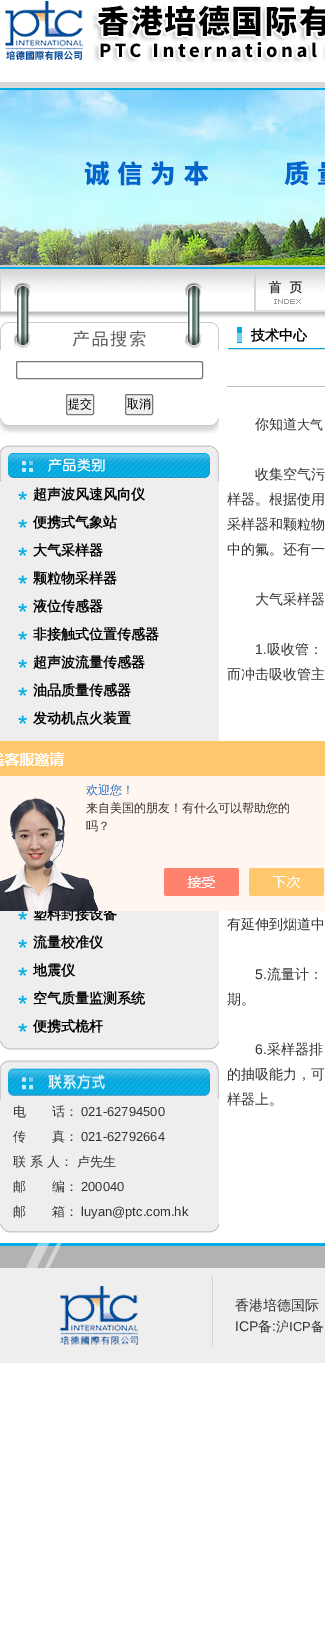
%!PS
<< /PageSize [325 1651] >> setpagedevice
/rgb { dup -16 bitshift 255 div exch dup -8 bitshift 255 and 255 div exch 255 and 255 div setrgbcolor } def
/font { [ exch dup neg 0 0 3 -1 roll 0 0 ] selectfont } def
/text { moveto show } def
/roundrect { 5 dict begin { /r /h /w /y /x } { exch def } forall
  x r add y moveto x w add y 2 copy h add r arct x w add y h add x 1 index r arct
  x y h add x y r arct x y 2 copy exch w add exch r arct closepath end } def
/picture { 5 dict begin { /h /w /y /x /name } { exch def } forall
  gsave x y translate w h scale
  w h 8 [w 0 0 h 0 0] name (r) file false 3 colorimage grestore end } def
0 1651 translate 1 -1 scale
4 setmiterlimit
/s1 { /WenQuanYiZenHei-Medium 12 font 16#000000 rgb } def
/s2 { /WenQuanYiZenHei-Bold 14 font 16#000000 rgb } def
/s3 { /WenQuanYiZenHei-Medium 13 font 16#333333 rgb } def
/s4 { /LiberationSans-Regular 13 font 16#333333 rgb } def
/s5 { /WenQuanYiZenHei-Medium 14 font 16#333333 rgb } def
/s6 { /LiberationSans-Regular 14 font 16#333333 rgb } def
/s7 { /WenQuanYiZenHei-Medium 12 font 16#2E6EC6 rgb } def
/s8 { /WenQuanYiZenHei-Medium 12 font 16#333333 rgb } def
16#FFFFFF rgb
0 0 325 1651 rectfill
(pic1.raw) 0 82 325 8 picture
(pic2.raw) 5 1 320 62 picture
(pic3.raw) 0 90 325 175 picture
16#CCCCCC rgb
0 265 325 2 rectfill
16#00ACE3 rgb
0 267 325 2 rectfill
(pic4.raw) 0 269 219 53 picture
(pic5.raw) 219 269 35 49 picture
(pic6.raw) 254 269 71 49 picture
16#D5D5D5 rgb
254 272 2 39 rectfill
(pic7.raw) 256 280 69 31 picture
(pic8.raw) 0 322 219 28 picture
16#767676 rgb
16.5 361.5 186 17 1.5 roundrect stroke
16#EFEFEF rgb
66.5 394.5 27 20 1.5 roundrect gsave fill grestore
16#767676 rgb
stroke
gsave
68 396 24 17 rectclip
s1
(提交) 68 408 text
grestore
16#EFEFEF rgb
125.5 394.5 27 20 1.5 roundrect gsave fill grestore
16#767676 rgb
stroke
s1
(取消) 127 408 text
(pic9.raw) 0 418 219 16 picture
(pic10.raw) 0 445 219 36 picture
16#EEEEEE rgb
0 481 219 560 rectfill
(pic11.raw) 18 491 9 9 picture
s2
(超声波风速风向仪) 33 499 text
(pic11.raw) 18 519 9 9 picture
(便携式气象站) 33 527 text
(pic11.raw) 18 547 9 9 picture
(大气采样器) 33 555 text
(pic11.raw) 18 575 9 9 picture
(颗粒物采样器) 33 583 text
(pic11.raw) 18 603 9 9 picture
(液位传感器) 33 611 text
(pic11.raw) 18 631 9 9 picture
(非接触式位置传感器) 33 639 text
(pic11.raw) 18 659 9 9 picture
(超声波流量传感器) 33 667 text
(pic11.raw) 18 687 9 9 picture
(油品质量传感器) 33 695 text
(pic11.raw) 18 715 9 9 picture
(发动机点火装置) 33 723 text
(pic11.raw) 18 911 9 9 picture
(塑料封接设备) 33 919 text
(pic11.raw) 18 939 9 9 picture
(流量校准仪) 33 947 text
(pic11.raw) 18 967 9 9 picture
(地震仪) 33 975 text
(pic11.raw) 18 995 9 9 picture
(空气质量监测系统) 33 1003 text
(pic11.raw) 18 1023 9 9 picture
(便携式桅杆) 33 1031 text
(pic12.raw) 0 1041 219 9 picture
(pic13.raw) 0 1060 219 39 picture
16#EEEEEE rgb
0 1099 219 125 rectfill
s3
(电　　话：) 13 1116 text
s4
(021-62794500) 81 1116 text
s3
(传　　真：) 13 1141 text
s4
(021-62792664) 81 1141 text
s3
(联 系 人： 卢先生) 13 1166 text
(邮　　编：) 13 1191 text
s4
(200040) 81 1191 text
s3
(邮　　箱：) 13 1216 text
s4
(luyan@ptc.com.hk) 81 1216 text
(pic12.raw) 0 1224 219 9 picture
(pic14.raw) 228 327 97 23 picture
s2
(技术中心) 251 340 text
16#BEBEBE rgb
227 386 98 1 rectfill
s5
(你知道) 255 429 text
s3
(大气) 297 429 text
s5
(收集空气污) 255 479 text
(样器。根据使用) 227 504 text
(采样器和颗粒物) 227 529 text
(中的氟。还有一) 227 554 text
(大气采样器) 255 604 text
s6
(1.) 255 654 text
s5
(吸收管：) 267 654 text
(而冲击吸收管主) 227 679 text
(有延伸到烟道中) 227 929 text
s6
(5.) 255 979 text
s5
(流量计：) 267 979 text
(期。) 227 1004 text
s6
(6.) 255 1054 text
s5
(采样器排) 267 1054 text
(的抽吸能力，可) 227 1079 text
(样器上。) 227 1104 text
(pic15.raw) 0 741 325 170 picture
s7
(欢迎您！) 86 794 text
s8
(来自美国的朋友！有什么可以帮助您的) 86 812 text
(吗？) 86 830 text
(pic16.raw) 0 1243 325 25 picture
16#EEEEEE rgb
0 1268 325 95 rectfill
(pic17.raw) 60 1286 78 59 picture
(pic18.raw) 212 1275 2 71 picture
s5
(香港培德国际) 235 1310 text
s6
(ICP) 235 1331 text
s5
(备) 258 1331 text
s6
(:) 272 1331 text
s3
(沪) 276 1331 text
s4
(ICP) 289 1331 text
s3
(备) 311 1331 text
showpage
